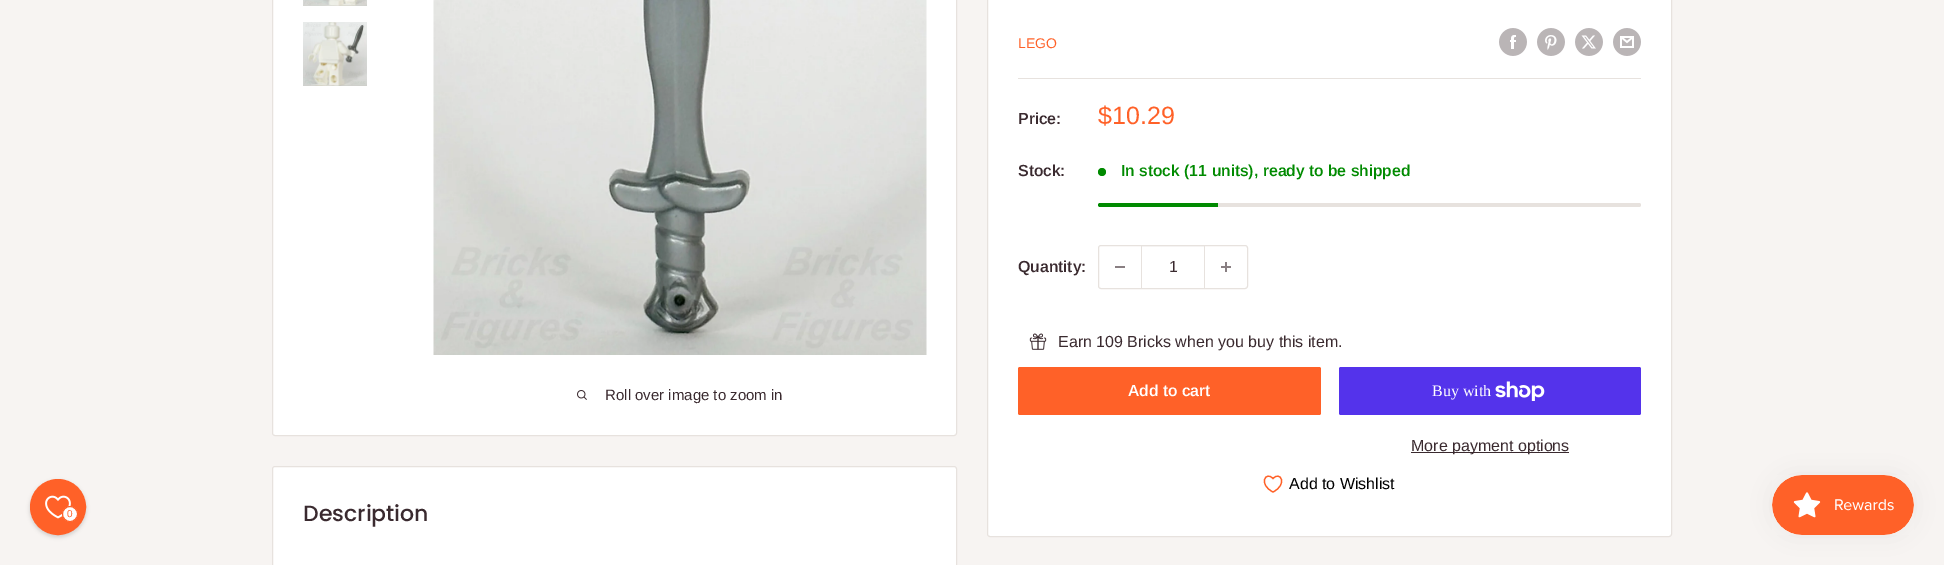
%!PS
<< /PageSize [1944 565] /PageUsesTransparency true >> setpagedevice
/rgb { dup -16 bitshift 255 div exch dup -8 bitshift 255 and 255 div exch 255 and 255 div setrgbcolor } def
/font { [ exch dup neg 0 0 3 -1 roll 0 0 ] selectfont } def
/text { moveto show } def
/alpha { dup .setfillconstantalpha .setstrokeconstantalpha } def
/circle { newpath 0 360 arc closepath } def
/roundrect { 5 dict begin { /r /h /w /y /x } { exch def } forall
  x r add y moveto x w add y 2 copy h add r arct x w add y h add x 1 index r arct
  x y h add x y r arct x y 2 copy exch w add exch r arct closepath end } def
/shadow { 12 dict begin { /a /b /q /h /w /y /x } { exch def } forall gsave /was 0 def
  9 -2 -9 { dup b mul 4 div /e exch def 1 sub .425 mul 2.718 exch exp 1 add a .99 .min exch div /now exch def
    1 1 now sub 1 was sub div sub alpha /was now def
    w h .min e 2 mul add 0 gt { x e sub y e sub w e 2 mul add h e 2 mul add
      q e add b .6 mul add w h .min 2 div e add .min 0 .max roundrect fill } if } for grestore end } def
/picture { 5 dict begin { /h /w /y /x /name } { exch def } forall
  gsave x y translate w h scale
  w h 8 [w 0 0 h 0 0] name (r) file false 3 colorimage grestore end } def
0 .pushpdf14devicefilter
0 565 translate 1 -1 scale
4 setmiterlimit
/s1 { /Arimo-Regular 10 font 16#FF6128 rgb } def
/s2 { /Arimo-Regular 15 font 16#3A2A2F rgb } def
/s3 { /Arimo-Regular 14 font 16#FF6128 rgb } def
/s4 { /Arimo-SemiBold 16 font 16#3A2A2F rgb } def
/s5 { /Arimo-Regular 25 font 16#FF6128 rgb } def
/s6 { /Arimo-SemiBold 16 font 16#008A00 rgb } def
/s7 { /Arimo-Regular 16 font 16#3A2A2F rgb } def
/s8 { /Arimo-SemiBold 16 font 16#FFFFFF rgb } def
/s9 { /LiberationSerif-Regular 16 font 16#FFFFFF rgb } def
/s10 { /Arimo-Regular 16 font 16#000000 rgb } def
/s11 { /Poppins-Medium 22 font 16#3A2A2F rgb } def
16#F7F4F2 rgb
0 0 1944 565 rectfill
16#000000 rgb
30 481 56 56 28 2 0.15 shadow
16#FF6128 rgb
58 507 27 circle gsave fill grestore
2 setlinewidth
stroke
(pic1.raw) 45 495 26 24 picture
16#FFFFFF rgb
70 514 7.5 circle gsave fill grestore
16#FF6128 rgb
1 setlinewidth
stroke
s1
(0) 67 517 text
16#FFFFFF rgb
272.5 -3.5 684 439 2.5 roundrect gsave fill grestore
16#E7E2DE rgb
stroke
(pic2.raw) 303 0 64 6 picture
(pic3.raw) 303 22 64 64 picture
(pic4.raw) 433 0 494 355 picture
(pic5.raw) 577 390 10 10 picture
s2
(Roll over image to zoom in) 605 400 text
16#FFFFFF rgb
987.5 -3.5 684 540 2.5 roundrect gsave fill grestore
16#E7E2DE rgb
stroke
s3
(LEGO) 1018 48 text
(pic6.raw) 1499 28 28 28 picture
(pic7.raw) 1537 28 28 28 picture
(pic8.raw) 1575 28 28 28 picture
(pic9.raw) 1613 28 28 28 picture
16#E7E2DE rgb
1018 78 623 1 rectfill
s4
(Price:) 1018 124 text
s5
($10.29) 1098 124 text
s4
(Stock:) 1018 176 text
16#008A00 rgb
1102 172 4 circle fill
(In stock \(11 units\), ready to be shipped) 1121 176 text
16#E7E2DE rgb
1098 203 543 4 2 roundrect fill
16#008A00 rgb
1100 203 moveto 1218 203 lineto 1218 207 lineto 1100 207 lineto 1099 207 1098 206 1098 205 curveto 1098 204 1099 203 1100 203 curveto closepath fill
s4
(Quantity:) 1018 272 text
16#E7E2DE rgb
1098.5 245.5 149 43 2.5 roundrect stroke
16#897F82 rgb
1115 266 10 2 rectfill
16#F5F3F2 rgb
1142 246 62 1 rectfill
16#E7E2DE rgb
1204 246 1 42 rectfill
1141 246 1 42 rectfill
s7
(1) 1169 272 text
(pic10.raw) 1221 262 10 10 picture
(pic11.raw) 1029 333 18 17 picture
(Earn 109 Bricks when you buy this item.) 1058 347 text
16#FF6128 rgb
1018 367 303 48 2 roundrect fill
s8
(Add to cart) 1128 396 text
16#5433EB rgb
1339 367 302 48 2 roundrect fill
s9
(Buy with) 1432 396 text
(pic12.raw) 1495 381 50 20 picture
16#3A2A2F rgb
1411 452 158 1 rectfill
s7
(More payment options) 1411 451 text
16#FF6128 rgb
1.2 setlinewidth
1273 492 moveto 1258 484.5 1265.5 470.5 1273 478.5 curveto 1280.5 470.5 1288 484.5 1273 492 curveto closepath stroke
s10
(Add to Wishlist) 1289 489 text
16#FFFFFF rgb
272.5 466.5 684 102 2.5 roundrect gsave fill grestore
16#E7E2DE rgb
1 setlinewidth
stroke
s11
(Description) 303 521 text
16#000000 rgb
1772 475 142 60 30 12.5 0.05 shadow
(pic13.raw) 1772 475 142 60 picture
.poppdf14devicefilter showpage
